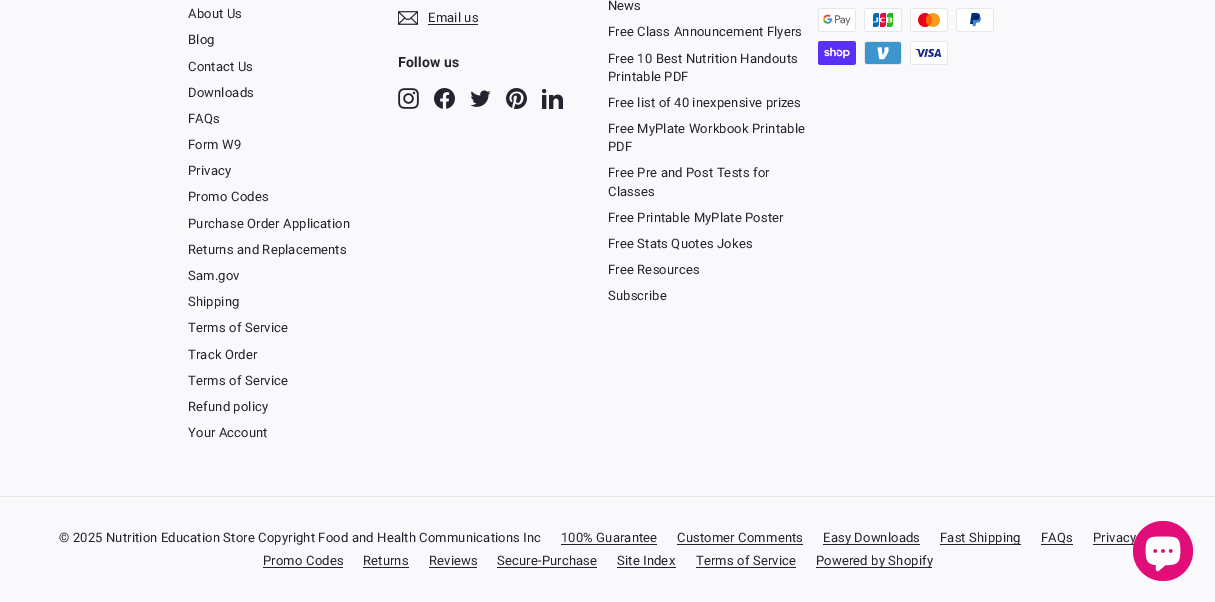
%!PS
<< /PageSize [1215 602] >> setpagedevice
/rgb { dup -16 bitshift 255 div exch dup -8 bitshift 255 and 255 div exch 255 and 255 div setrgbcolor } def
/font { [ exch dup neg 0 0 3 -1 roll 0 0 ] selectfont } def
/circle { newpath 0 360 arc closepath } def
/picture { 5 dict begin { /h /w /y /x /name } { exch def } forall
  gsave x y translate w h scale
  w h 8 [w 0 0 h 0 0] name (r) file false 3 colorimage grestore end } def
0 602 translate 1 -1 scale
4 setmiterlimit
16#F9F9FB rgb
0 0 1215 602 rectfill
/Roboto-Regular 13 font
16#242430 rgb
188 18 moveto 0.15 0 (About Us) ashow
188 44 moveto 0.15 0 (Blog) ashow
188 71 moveto 0.15 0 (Contact Us) ashow
188 97 moveto 0.15 0 (Downloads) ashow
188 123 moveto 0.15 0 (FAQs) ashow
188 149 moveto 0.15 0 (Form W9) ashow
188 175 moveto 0.15 0 (Privacy) ashow
188 201 moveto 0.15 0 (Promo Codes) ashow
188 228 moveto 0.15 0 (Purchase Order Application) ashow
188 254 moveto 0.15 0 (Returns and Replacements) ashow
188 280 moveto 0.15 0 (Sam.gov) ashow
188 306 moveto 0.15 0 (Shipping) ashow
188 332 moveto 0.15 0 (Terms of Service) ashow
188 359 moveto 0.15 0 (Track Order) ashow
188 385 moveto 0.15 0 (Terms of Service) ashow
188 411 moveto 0.15 0 (Refund policy) ashow
188 437 moveto 0.15 0 (Your Account) ashow
(pic1.raw) 398 11 20 14 picture
428 22 moveto 0.15 0 (Email us) ashow
428 24 50 1 rectfill
/Roboto-Bold 14 font
398 67 moveto 0.15 0 (Follow us) ashow
(pic2.raw) 398 88 21 21 picture
(pic3.raw) 434 88 21 21 picture
(pic4.raw) 470 90 21 17 picture
(pic5.raw) 506 88 21 21 picture
(pic6.raw) 542 88 21 21 picture
/Roboto-Regular 13 font
608 10 moveto 0.15 0 (News) ashow
608 36 moveto 0.15 0 (Free Class Announcement Flyers) ashow
608 63 moveto 0.15 0 (Free 10 Best Nutrition Handouts) ashow
608 81 moveto 0.15 0 (Printable PDF) ashow
608 107 moveto 0.15 0 (Free list of 40 inexpensive prizes) ashow
608 133 moveto 0.15 0 (Free MyPlate Workbook Printable) ashow
608 151 moveto 0.15 0 (PDF) ashow
608 177 moveto 0.15 0 (Free Pre and Post Tests for) ashow
608 196 moveto 0.15 0 (Classes) ashow
608 222 moveto 0.15 0 (Free Printable MyPlate Poster) ashow
608 248 moveto 0.15 0 (Free Stats Quotes Jokes) ashow
608 274 moveto 0.15 0 (Free Resources) ashow
608 300 moveto 0.15 0 (Subscribe) ashow
(pic7.raw) 818 8 38 24 picture
(pic8.raw) 864 8 38 24 picture
(pic9.raw) 910 8 38 24 picture
(pic10.raw) 956 8 38 24 picture
(pic11.raw) 818 41 38 24 picture
(pic12.raw) 864 41 38 24 picture
(pic13.raw) 910 41 38 24 picture
16#E8E8E1 rgb
0 496 1215 1 rectfill
16#242430 rgb
59 542 moveto 0.15 0 (© 2025 Nutrition Education Store Copyright Food and Health Communications Inc) ashow
561 542 moveto 0.15 0 (100% Guarantee) ashow
561 544 96 1 rectfill
677 542 moveto 0.15 0 (Customer Comments) ashow
677 544 126 1 rectfill
823 544 97 1 rectfill
823 542 moveto 0.15 0 (Easy Downloads) ashow
940 544 81 1 rectfill
940 542 moveto 0.15 0 (Fast Shipping) ashow
1041 542 moveto 0.15 0 (FAQs) ashow
1041 544 32 1 rectfill
1093 544 43 1 rectfill
1093 542 moveto 0.15 0 (Privacy) ashow
263 565 moveto 0.15 0 (Promo Codes) ashow
263 567 80 1 rectfill
363 565 moveto 0.15 0 (Returns) ashow
363 567 46 1 rectfill
429 565 moveto 0.15 0 (Reviews) ashow
429 567 48 1 rectfill
497 565 moveto 0.15 0 (Secure-Purchase) ashow
497 567 100 1 rectfill
617 565 moveto 0.15 0 (Site Index) ashow
617 567 59 1 rectfill
696 565 moveto 0.15 0 (Terms of Service) ashow
696 567 100 1 rectfill
816 567 116 1 rectfill
816 565 moveto 0.15 0 (Powered by Shopify) ashow
16#E10D79 rgb
1163 551 30 circle fill
(pic14.raw) 1145 536 36 36 picture
showpage
